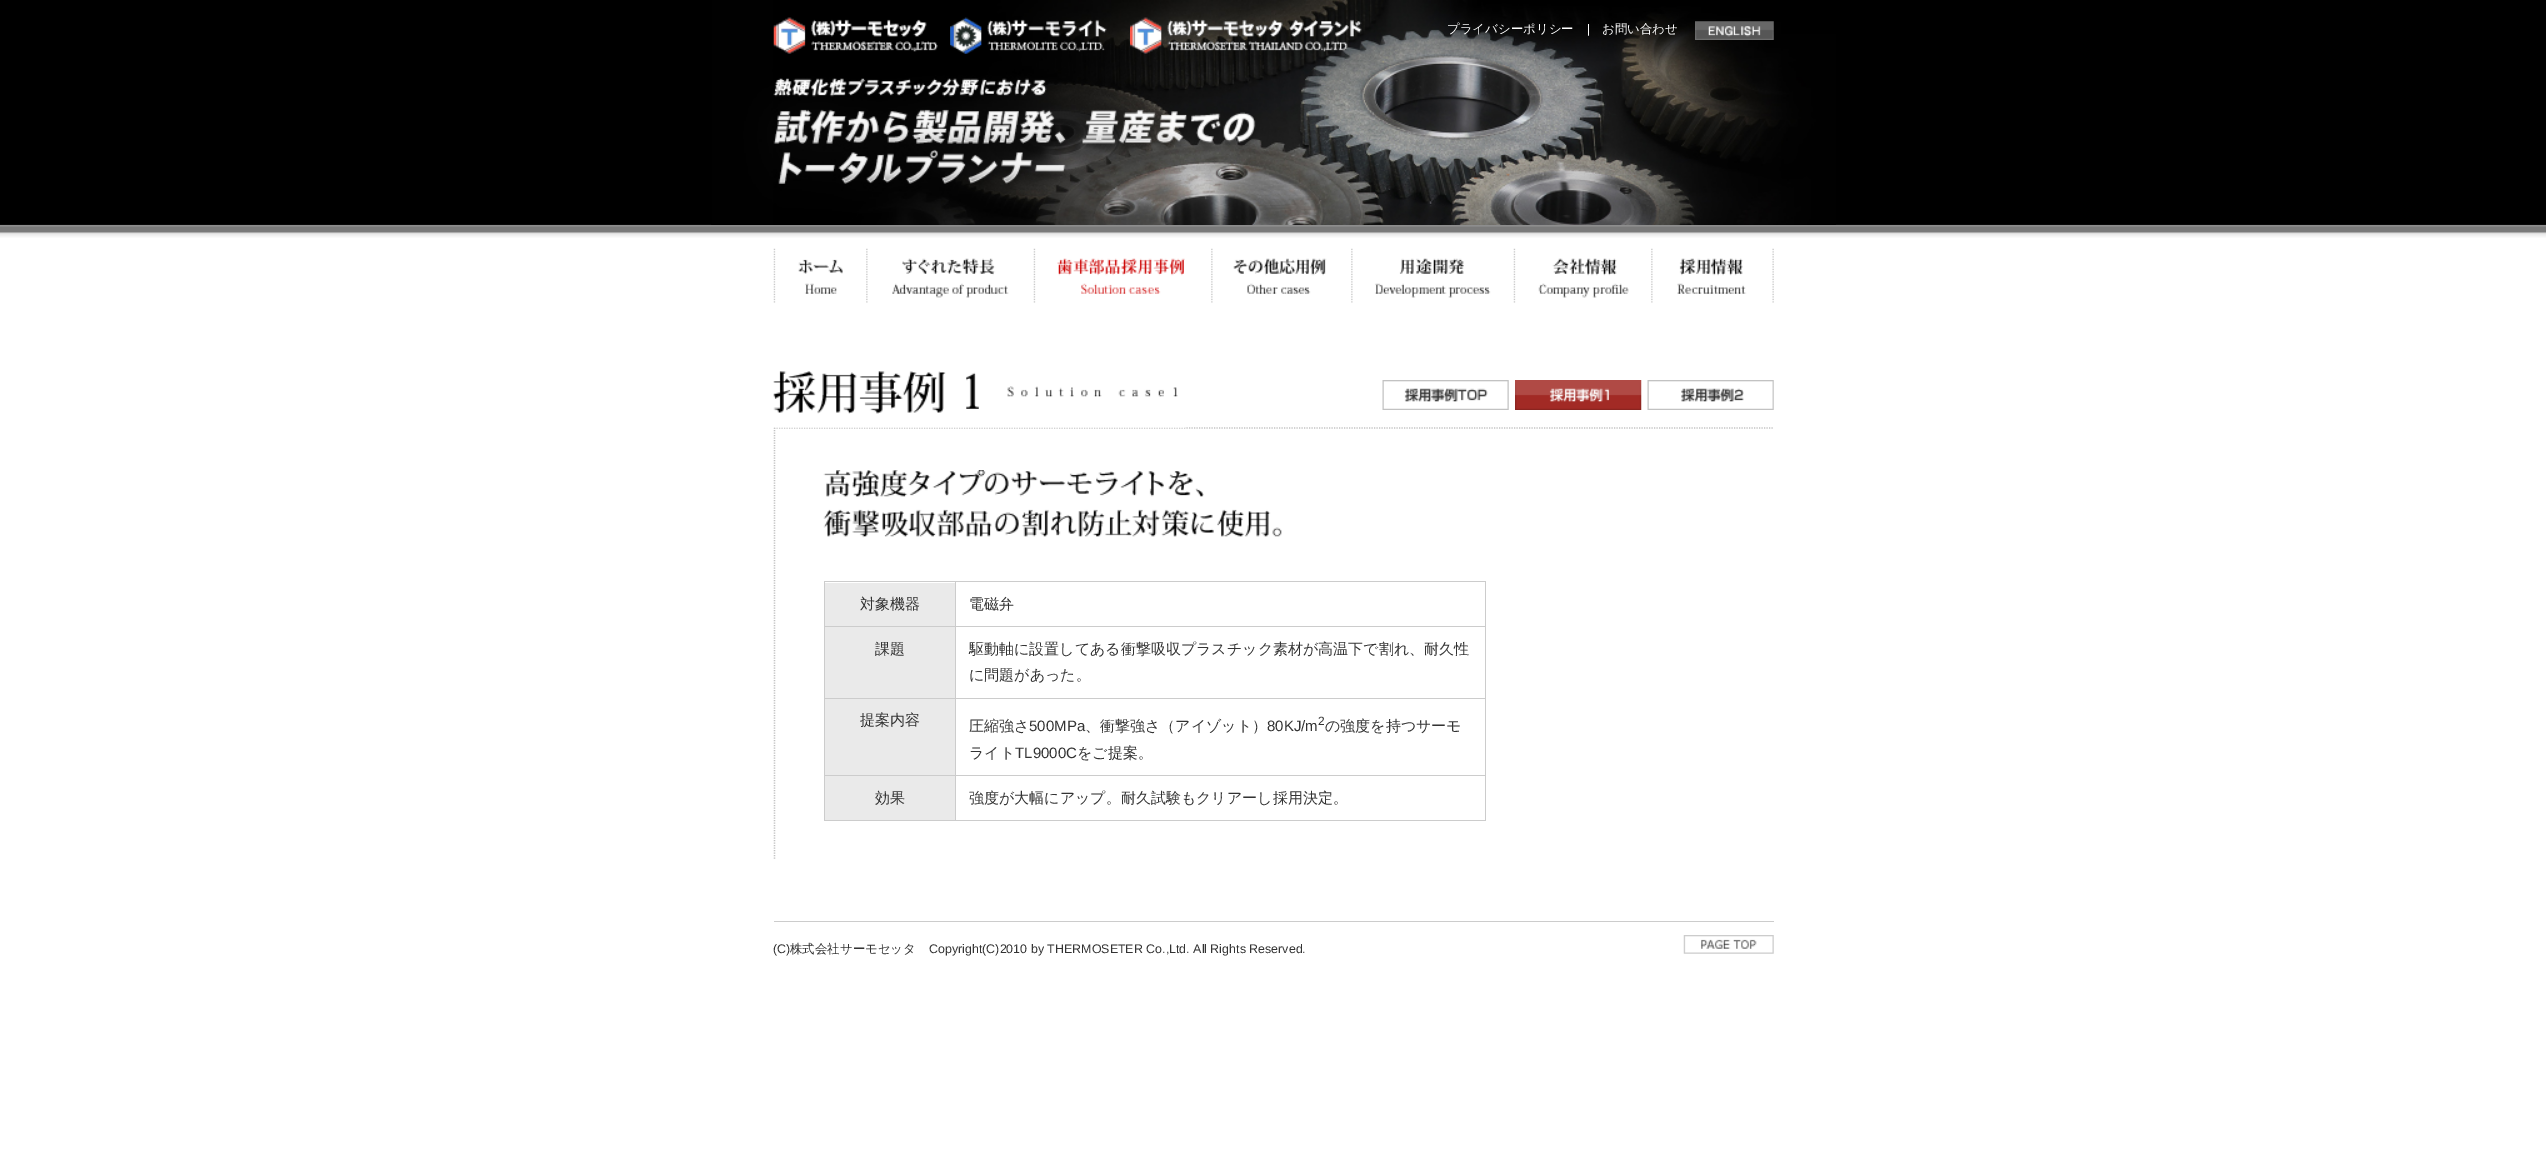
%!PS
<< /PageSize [2546 1171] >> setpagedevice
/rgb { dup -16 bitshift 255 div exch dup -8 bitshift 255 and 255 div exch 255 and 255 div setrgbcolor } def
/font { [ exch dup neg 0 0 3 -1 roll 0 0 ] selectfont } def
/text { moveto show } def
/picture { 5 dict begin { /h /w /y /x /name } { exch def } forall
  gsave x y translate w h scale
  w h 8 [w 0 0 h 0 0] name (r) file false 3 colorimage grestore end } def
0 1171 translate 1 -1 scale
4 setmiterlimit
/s1 { /WenQuanYiZenHei-Medium 12.45 font 16#FFFFFF rgb } def
/s2 { /LiberationSans-Regular 12.45 font 16#FFFFFF rgb } def
/s3 { /WenQuanYiZenHei-Medium 15 font 16#333333 rgb } def
/s4 { /LiberationSans-Regular 15 font 16#333333 rgb } def
/s5 { /LiberationSans-Regular 12 font 16#333333 rgb } def
/s6 { /LiberationSans-Regular 12.45 font 16#333333 rgb } def
/s7 { /WenQuanYiZenHei-Medium 12.45 font 16#333333 rgb } def
16#FFFFFF rgb
0 0 2546 1171 rectfill
(pic1.raw) 0 0 2546 238 picture
(pic2.raw) 711 0 1125 225 picture
(pic3.raw) 773 17 165 37 picture
(pic4.raw) 950 17 157 37 picture
(pic5.raw) 1130 17 232 37 picture
s1
(プライバシーポリシー) 1447 33 text
s2
(|) 1587 33 text
s1
(お問い合わせ) 1602 33 text
(pic6.raw) 1695 21 79 19 picture
(pic7.raw) 773 248 70 55 picture
(pic8.raw) 866 248 143 55 picture
(pic9.raw) 1033 248 152 55 picture
(pic10.raw) 1211 248 116 55 picture
(pic11.raw) 1351 248 140 55 picture
(pic12.raw) 1513 248 116 55 picture
(pic13.raw) 1651 248 123 55 picture
16#C2C2C2 rgb
1.2 setlinewidth
[1.25 1.25] 0 setdash
774 428 moveto 1774 428 lineto stroke
774.5 427.5 moveto 774.5 859 lineto stroke
(pic14.raw) 773 371 412 57 picture
(pic15.raw) 1382 380 127 30 picture
(pic16.raw) 1515 380 127 30 picture
(pic17.raw) 1647 380 127 30 picture
(pic18.raw) 823 470 459 68 picture
16#EAEAEA rgb
825 583 130 115 rectfill
16#CCCCCC rgb
955 581 531 1 rectfill
955 626 531 1 rectfill
955 698 531 1 rectfill
955 775 531 1 rectfill
1485 775 1 46 rectfill
955 820 531 1 rectfill
955 775 1 46 rectfill
824 775 132 1 rectfill
955 698 1 78 rectfill
824 698 132 1 rectfill
955 626 1 73 rectfill
824 626 132 1 rectfill
955 581 1 47 rectfill
824 581 132 1 rectfill
824 820 132 1 rectfill
824 775 1 46 rectfill
824 698 1 78 rectfill
824 626 1 73 rectfill
824 581 1 47 rectfill
s3
(対象機器) 860 609 text
16#CCCCCC rgb
1485 698 1 78 rectfill
1485 626 1 73 rectfill
1485 581 1 47 rectfill
s3
(電磁弁) 969 609 text
(課題) 875 654 text
(駆動軸に設置してある衝撃吸収プラスチック素材が高温下で割れ、耐久性) 969 654 text
(に問題があった。) 969 680 text
16#EAEAEA rgb
825 699 130 76 rectfill
s3
(提案内容) 860 725 text
(圧縮強さ) 969 731 text
s4
(500MPa) 1029 731 text
s3
(、衝撃強さ（アイゾット）) 1085 731 text
s4
(80KJ/m) 1267 731 text
s5
(2) 1318 725 text
s3
(の強度を持つサーモ) 1325 731 text
(ライト) 969 758 text
s4
(TL9000C) 1015 758 text
s3
(をご提案。) 1077 758 text
16#EAEAEA rgb
825 776 130 44 rectfill
s3
(効果) 875 803 text
(強度が大幅にアップ。耐久試験もクリアーし採用決定。) 969 803 text
16#CCCCCC rgb
774 921 1000 1 rectfill
s6
(\(C\)) 773 953 text
s7
(株式会社サーモセッタ) 790 953 text
s6
(Copyright\(C\)2010 by THERMOSETER Co.,Ltd. All Rights Reserved.) 929 953 text
(pic19.raw) 1683 935 91 19 picture
showpage
